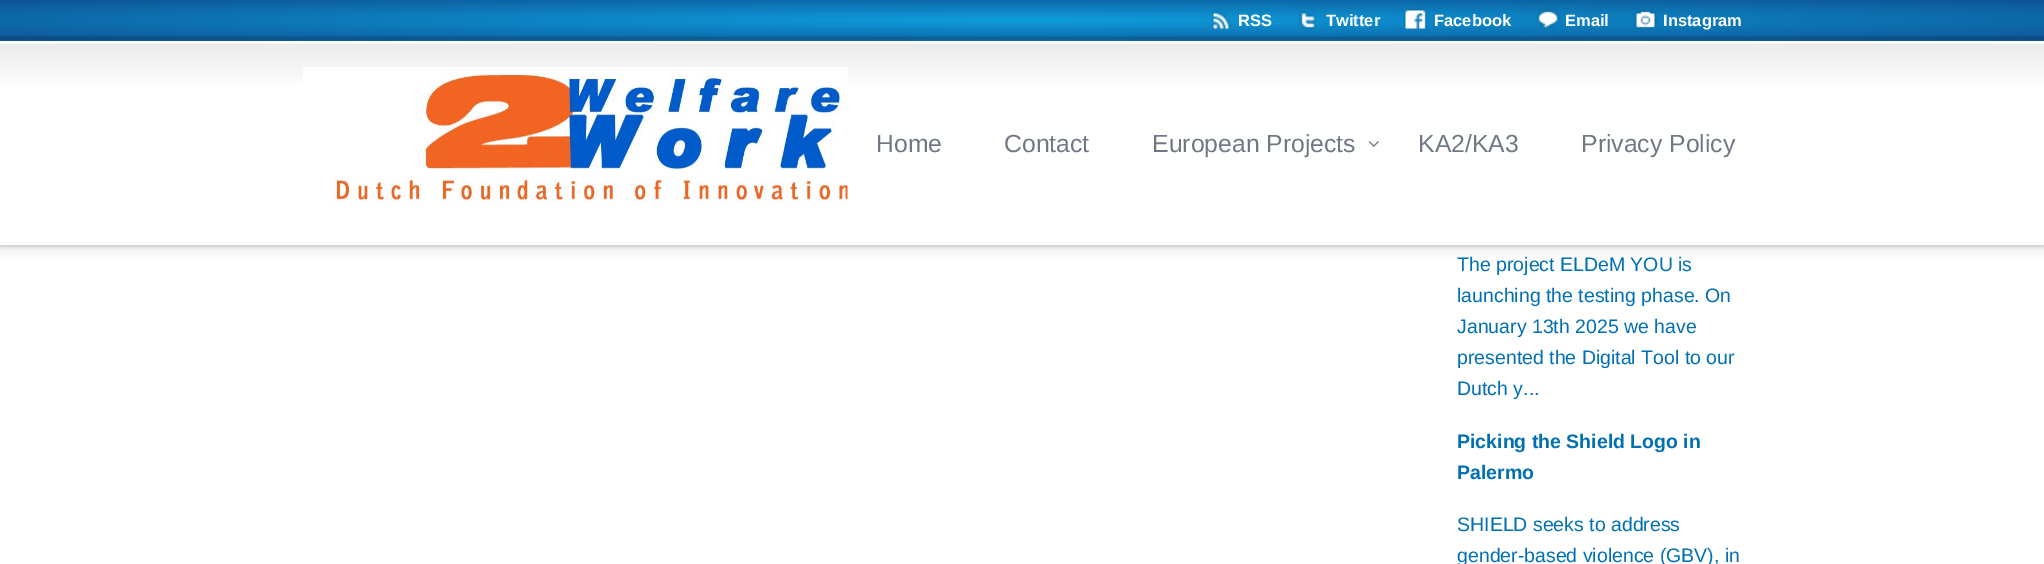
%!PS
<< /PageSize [2044 564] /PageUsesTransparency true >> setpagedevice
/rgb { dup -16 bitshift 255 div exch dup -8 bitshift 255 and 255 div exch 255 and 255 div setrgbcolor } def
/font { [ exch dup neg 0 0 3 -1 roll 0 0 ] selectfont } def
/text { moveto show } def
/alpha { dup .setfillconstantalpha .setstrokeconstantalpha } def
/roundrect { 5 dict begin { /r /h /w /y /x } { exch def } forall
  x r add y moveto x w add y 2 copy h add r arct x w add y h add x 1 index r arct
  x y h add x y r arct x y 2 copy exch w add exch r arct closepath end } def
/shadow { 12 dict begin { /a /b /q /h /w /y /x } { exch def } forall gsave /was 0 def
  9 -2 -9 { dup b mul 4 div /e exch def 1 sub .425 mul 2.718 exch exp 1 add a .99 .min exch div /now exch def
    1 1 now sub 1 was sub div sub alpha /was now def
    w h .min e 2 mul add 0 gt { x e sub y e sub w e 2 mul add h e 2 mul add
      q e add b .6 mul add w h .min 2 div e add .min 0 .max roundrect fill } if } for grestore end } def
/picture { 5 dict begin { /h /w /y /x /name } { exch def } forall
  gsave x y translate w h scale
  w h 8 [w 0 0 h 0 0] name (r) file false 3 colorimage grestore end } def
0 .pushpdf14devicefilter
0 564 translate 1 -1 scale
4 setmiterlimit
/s1 { /LiberationSans-Bold 16.5 font 16#FFFFFF rgb } def
/s2 { /LiberationSans-Regular 24.75 font 16#707885 rgb } def
/s3 { /LiberationSans-Regular 19.5 font 16#0070B3 rgb } def
/s4 { /LiberationSans-Bold 19.5 font 16#0070B3 rgb } def
16#FFFFFF rgb
0 0 2044 564 rectfill
16#000000 rgb
0 2 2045 244 0 2 0.2 shadow
0 5 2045 244 0 7 0.1 shadow
gsave 0 0 moveto 2044 0 lineto 2044 41 lineto 0 41 lineto closepath clip newpath 1022 20 translate 1446 29 scale
<< /ShadingType 3 /ColorSpace /DeviceRGB /Coords [0 0 0 0 0 1] /Extend [true true] /Function << /FunctionType 2 /Domain [0 1] /C0 [0.051 0.616 0.863] /C1 [0.051 0.322 0.573] /N 1 >> >> shfill grestore
(pic1.raw) 1211 9 21 20 picture
s1
(RSS) 1238 26 text
(pic2.raw) 1298 11 19 18 picture
(Twitter) 1326 26 text
(pic3.raw) 1403 8 25 21 picture
(Facebook) 1434 26 text
(pic4.raw) 1535 8 26 21 picture
(Email) 1565 26 text
(pic5.raw) 1634 9 23 20 picture
(Instagram) 1663 26 text
(pic6.raw) 0 36 2044 4 picture
0 41 2044 204 rectfill
(pic7.raw) 0 43 2044 41 picture
(pic8.raw) 303 67 545 139 picture
s2
(Home) 876 152 text
(Contact) 1004 152 text
(European Projects) 1152 152 text
(pic9.raw) 1368 141 11 6 picture
(KA2/KA3) 1418 152 text
(Privacy Policy) 1581 152 text
s3
(The project ELDeM YOU is) 1457 271 text
(launching the testing phase. On) 1457 302 text
(January 13th 2025 we have) 1457 333 text
(presented the Digital Tool to our) 1457 364 text
(Dutch y...) 1457 395 text
s4
(Picking the Shield Logo in) 1457 448 text
(Palermo) 1457 479 text
s3
(SHIELD seeks to address) 1457 531 text
(gender-based violence \(GBV\), in) 1457 562 text
.poppdf14devicefilter showpage
